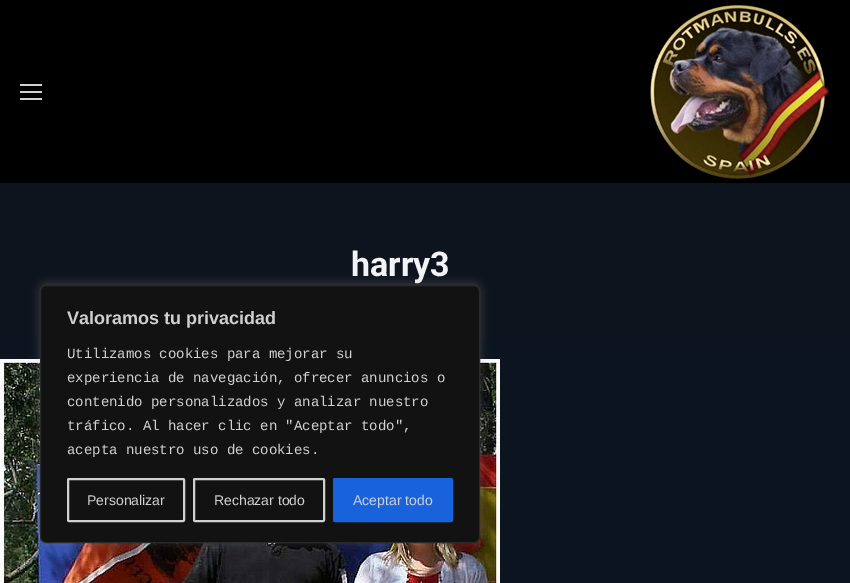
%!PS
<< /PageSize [850 583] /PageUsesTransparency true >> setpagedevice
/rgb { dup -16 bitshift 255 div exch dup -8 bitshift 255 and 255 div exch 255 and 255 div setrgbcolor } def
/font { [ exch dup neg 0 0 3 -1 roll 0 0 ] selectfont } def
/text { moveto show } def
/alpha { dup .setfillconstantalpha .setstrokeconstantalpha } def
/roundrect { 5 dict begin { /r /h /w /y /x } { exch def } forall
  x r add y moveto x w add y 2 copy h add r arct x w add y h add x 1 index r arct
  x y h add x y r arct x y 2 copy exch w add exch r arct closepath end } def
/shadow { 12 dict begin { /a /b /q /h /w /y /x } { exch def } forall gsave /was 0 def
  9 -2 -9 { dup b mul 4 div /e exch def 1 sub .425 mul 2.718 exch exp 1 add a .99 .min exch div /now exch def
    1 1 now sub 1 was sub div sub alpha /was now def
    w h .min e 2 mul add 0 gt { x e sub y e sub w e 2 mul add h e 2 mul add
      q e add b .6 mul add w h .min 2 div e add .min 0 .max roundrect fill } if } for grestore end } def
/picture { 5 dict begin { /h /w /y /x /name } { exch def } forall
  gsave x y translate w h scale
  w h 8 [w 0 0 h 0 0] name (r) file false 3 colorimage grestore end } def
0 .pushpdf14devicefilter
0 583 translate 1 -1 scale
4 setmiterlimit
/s1 { /Roboto-Bold 34 font 16#F1F3F6 rgb } def
/s2 { /LiberationSans-Bold 18 font 16#D0D0D0 rgb } def
/s3 { /LiberationMono-Regular 14 font 16#D0D0D0 rgb } def
/s4 { /LiberationSans-Regular 14 font 16#D0D0D0 rgb } def
16#0B141F rgb
0 0 850 583 rectfill
16#000000 rgb
0 0 850 183 rectfill
16#D1D1D1 rgb
20 91 22 2 rectfill
20 84 22 2 rectfill
20 98 22 2 rectfill
(pic1.raw) 650 3 180 176 picture
16#0E141D rgb
0 183 850 156 rectfill
s1
(harry3) 351 276 text
(pic2.raw) 0 359 500 224 picture
16#ACABAB rgb
40 284 440 258 6 5 0.3 shadow
16#121212 rgb
40.5 285.5 439 257 5.5 roundrect gsave fill grestore
16#2A2A2A rgb
stroke
s2
(Valoramos tu privacidad) 67 324 text
s3
(Utilizamos cookies para mejorar su) 67 358 text
(experiencia de navegación, ofrecer anuncios o) 67 382 text
(contenido personalizados y analizar nuestro) 67 406 text
(tráfico. Al hacer clic en "Aceptar todo",) 67 430 text
(acepta nuestro uso de cookies.) 67 454 text
2 setlinewidth
68 479 116 42 1 roundrect stroke
s4
(Personalizar) 87 505 text
194 479 130 42 1 roundrect stroke
(Rechazar todo) 214 505 text
16#1863DC rgb
334 479 118 42 1 roundrect gsave fill grestore
stroke
s4
(Aceptar todo) 353 505 text
.poppdf14devicefilter showpage
